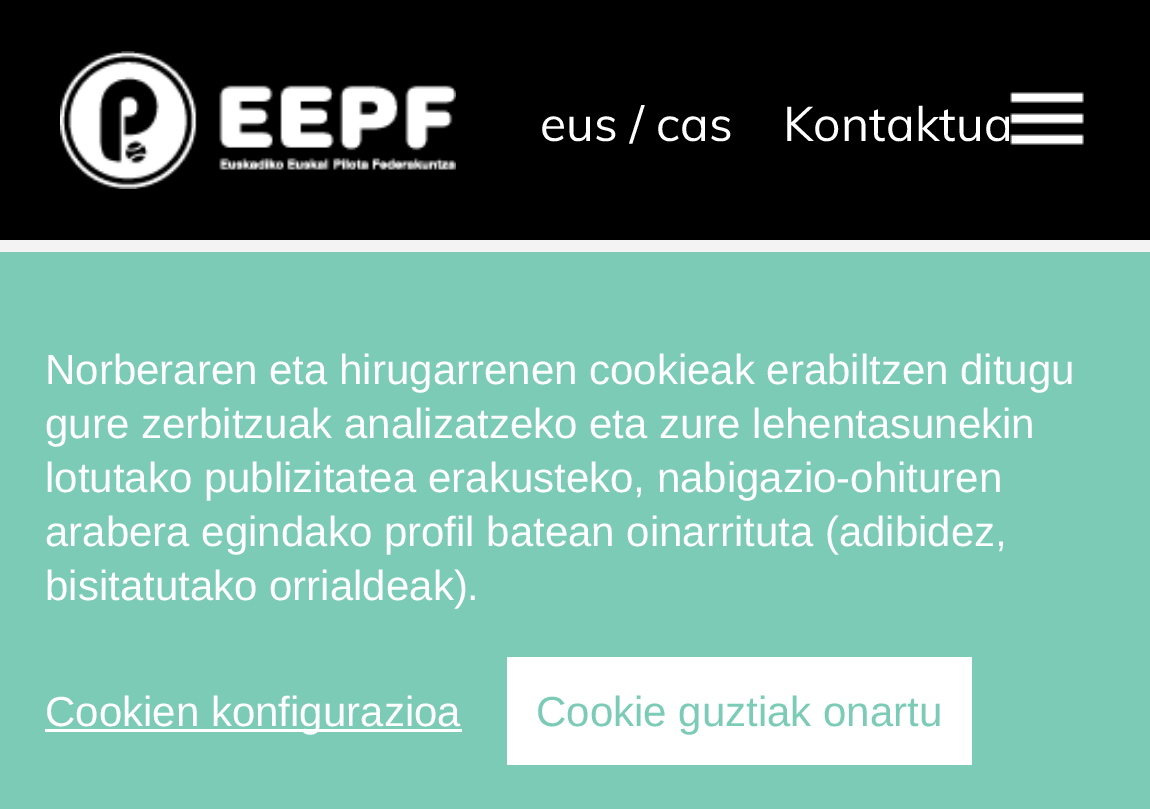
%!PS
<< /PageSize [1150 809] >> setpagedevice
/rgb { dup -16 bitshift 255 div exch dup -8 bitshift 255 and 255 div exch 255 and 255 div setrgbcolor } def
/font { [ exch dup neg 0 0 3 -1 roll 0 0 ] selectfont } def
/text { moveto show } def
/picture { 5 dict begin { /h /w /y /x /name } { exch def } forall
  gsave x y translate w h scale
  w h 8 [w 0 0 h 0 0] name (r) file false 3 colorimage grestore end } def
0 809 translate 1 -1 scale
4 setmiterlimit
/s1 { /Muli-Regular 48 font 16#FFFFFF rgb } def
/s2 { /LiberationSans-Regular 42 font 16#FFFFFF rgb } def
/s3 { /LiberationSans-Regular 42 font 16#7BCBB7 rgb } def
16#F3F3F3 rgb
0 0 1150 809 rectfill
16#000000 rgb
0 0 1150 240 rectfill
(pic1.raw) 60 51 396 138 picture
s1
(eus / cas) 540 141 text
(Kontaktua) 783 141 text
(pic2.raw) 1010 92 74 53 picture
16#7BCBB7 rgb
0 252 1150 557 rectfill
s2
(Norberaren eta hirugarrenen cookieak erabiltzen ditugu) 45 384 text
(gure zerbitzuak analizatzeko eta zure lehentasunekin) 45 438 text
(lotutako publizitatea erakusteko, nabigazio-ohituren) 45 492 text
(arabera egindako profil batean oinarrituta \(adibidez,) 45 546 text
(bisitatutako orrialdeak\).) 45 600 text
45 729 417 3 rectfill
(Cookien konfigurazioa) 45 726 text
507 657 465 108 rectfill
s3
(Cookie guztiak onartu) 536 726 text
showpage
